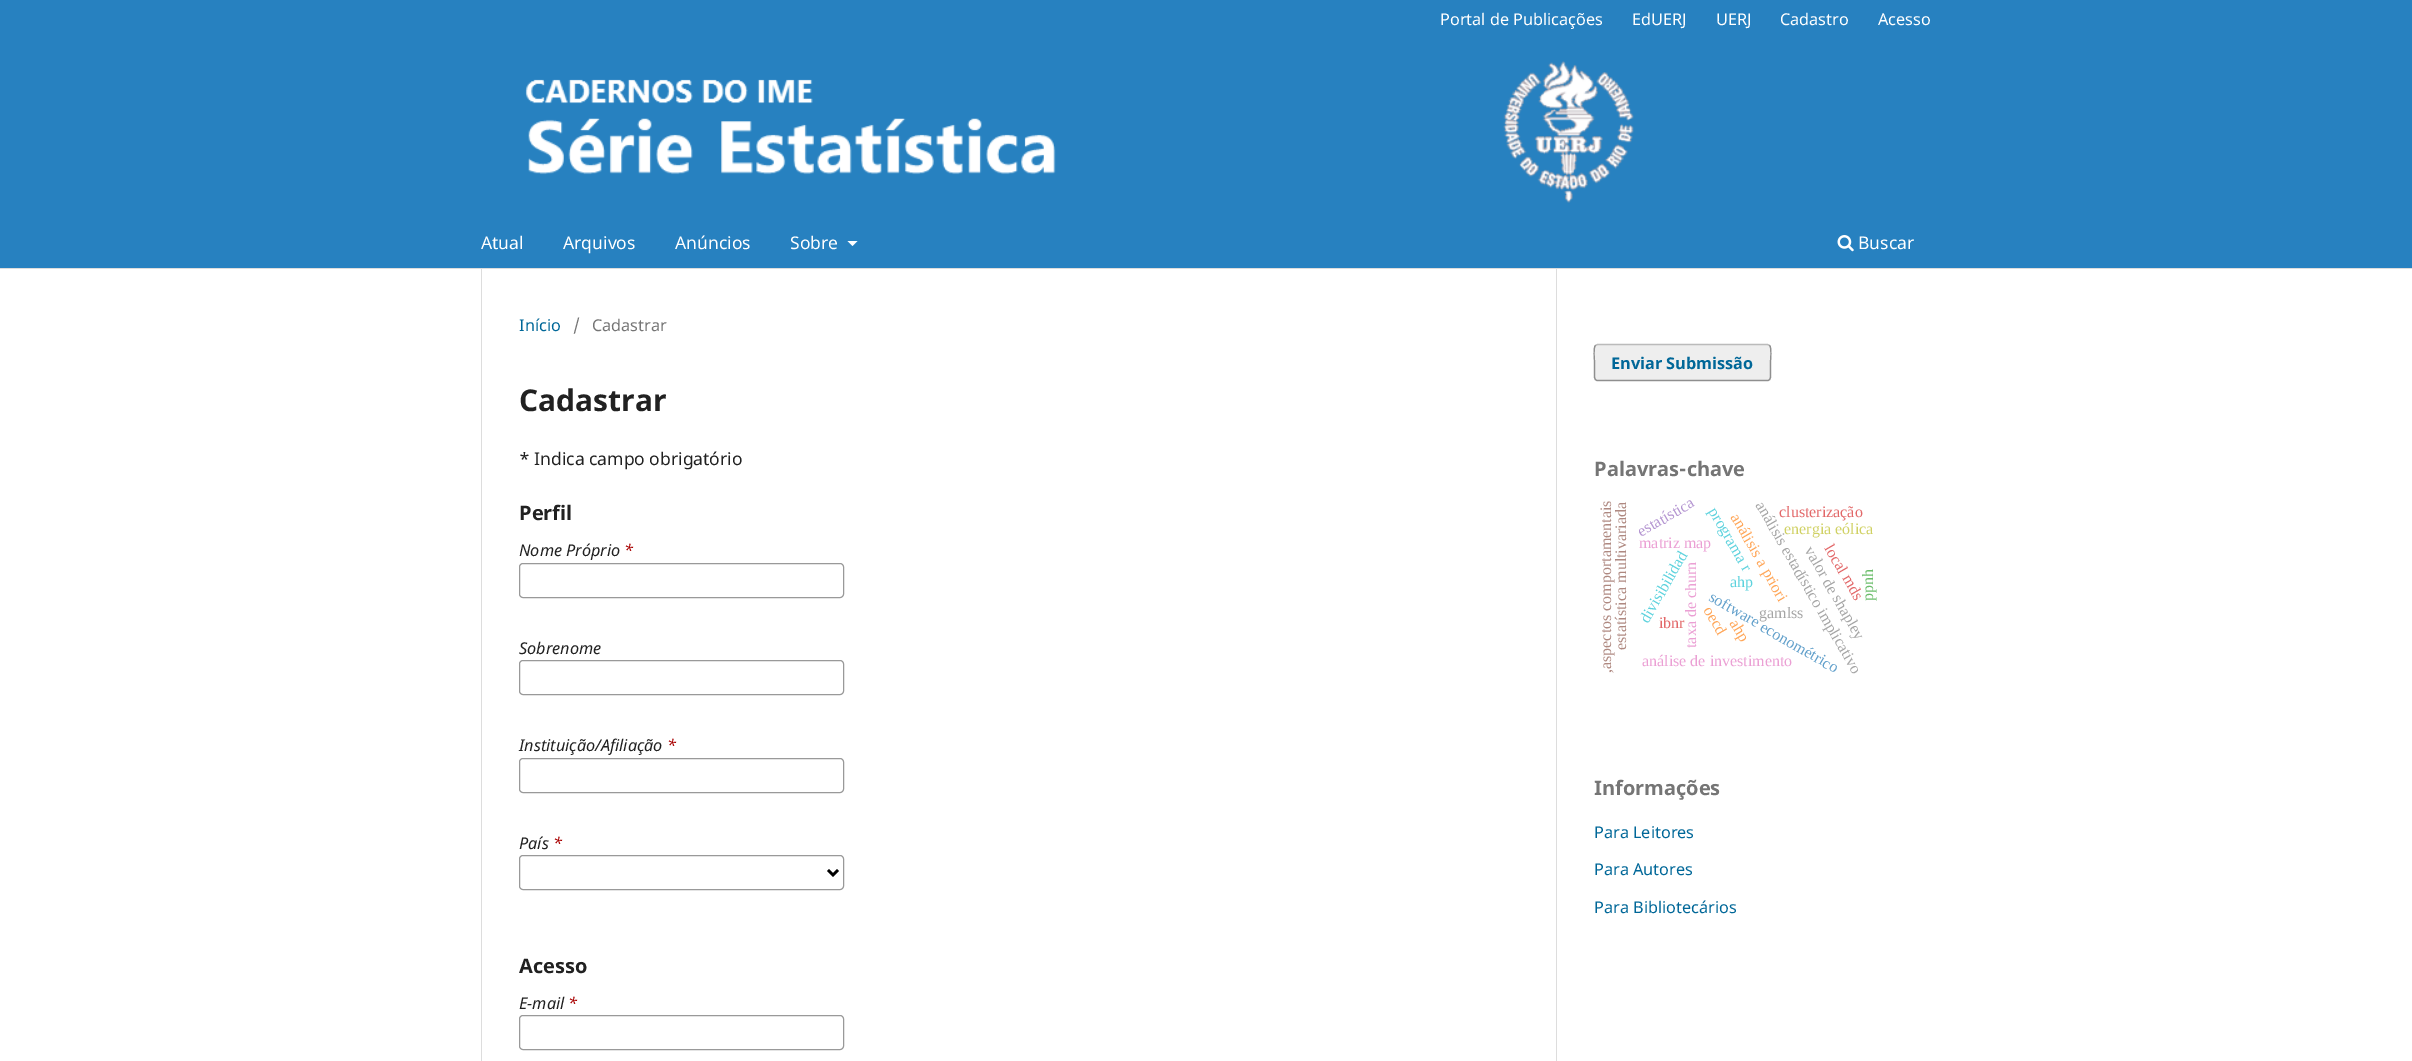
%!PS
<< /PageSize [2412 1061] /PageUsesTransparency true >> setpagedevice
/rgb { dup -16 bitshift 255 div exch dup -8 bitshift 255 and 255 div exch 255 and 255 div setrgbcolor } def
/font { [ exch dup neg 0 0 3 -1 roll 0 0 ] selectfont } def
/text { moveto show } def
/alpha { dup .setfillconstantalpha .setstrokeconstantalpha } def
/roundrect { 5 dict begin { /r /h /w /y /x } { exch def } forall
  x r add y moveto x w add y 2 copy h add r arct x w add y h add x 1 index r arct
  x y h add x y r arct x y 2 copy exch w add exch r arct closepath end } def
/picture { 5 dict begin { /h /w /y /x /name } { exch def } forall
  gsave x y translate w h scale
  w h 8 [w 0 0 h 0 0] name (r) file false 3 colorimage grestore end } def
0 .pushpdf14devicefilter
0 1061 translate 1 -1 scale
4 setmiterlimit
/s1 { /NotoSans-Regular 16.25 font 16#FFFFFF rgb } def
/s2 { /NotoSans-Regular 17.5 font 16#FFFFFF rgb } def
/s3 { /NotoSans-Regular 16.25 font 16#006798 rgb } def
/s4 { /NotoSans-Regular 16.25 font 16#757575 rgb } def
/s5 { /NotoSans-Bold 30 font 16#212121 rgb } def
/s6 { /NotoSans-Regular 17.5 font 16#212121 rgb } def
/s7 { /NotoSans-Bold 20 font 16#212121 rgb } def
/s8 { /NotoSans-Italic 16.25 font 16#212121 rgb } def
/s9 { /NotoSans-Italic 16.25 font 16#A80000 rgb } def
/s10 { /NotoSans-Bold 16.25 font 16#006798 rgb } def
/s11 { /NotoSans-Bold 20 font 16#757575 rgb } def
/s12 { /LiberationSerif-Regular 16 font 16#5DD2DD rgb } def
/s13 { /LiberationSerif-Regular 16 font 16#EBA0D4 rgb } def
/s14 { /LiberationSerif-Regular 16 font 16#E26869 rgb } def
/s15 { /LiberationSerif-Regular 16 font 16#D0D164 rgb } def
/s16 { /LiberationSerif-Regular 16 font 16#A5A5A5 rgb } def
16#FFFFFF rgb
0 0 2412 1061 rectfill
16#2781C0 rgb
0 0 2412 268 rectfill
16#DDDDDD rgb
0 268 2412 1 rectfill
s1
(Portal de Publicações) 1440 25 text
(EdUERJ) 1632 25 text
(UERJ) 1716 25 text
(Cadastro) 1780 25 text
(Acesso) 1878 25 text
s2
(Atual) 481 249 text
(Arquivos) 563 249 text
(Anúncios) 675 249 text
(Sobre) 790 249 text
847.5 241 moveto 857.5 241 lineto 852.5 246 lineto closepath fill
(pic1.raw) 1837 235 17 17 picture
(Buscar) 1858 249 text
(pic2.raw) 525 61 1109 142 picture
16#DDDDDD rgb
481 269 1 792 rectfill
s3
(Início) 519 331 text
s4
(/) 573 331 text
(Cadastrar) 592 331 text
s5
(Cadastrar) 519 411 text
s6
(* Indica campo obrigatório) 519 465 text
s7
(Perfil) 519 520 text
s8
(Nome Próprio) 519 556 text
s9
(*) 624 556 text
16#999999 rgb
519.5 563.5 324 34 3.5 roundrect stroke
s8
(Sobrenome) 519 654 text
16#999999 rgb
519.5 660.5 324 34 3.5 roundrect stroke
s8
(Instituição/Afiliação) 519 751 text
s9
(*) 667 751 text
16#999999 rgb
519.5 758.5 324 34 3.5 roundrect stroke
s8
(País) 519 849 text
s9
(*) 553 849 text
16#999999 rgb
519.5 855.5 324 34 3.5 roundrect stroke
16#000000 rgb
2.5 setlinewidth
828 870 moveto 833 875 lineto 838 870 lineto stroke
s7
(Acesso) 519 973 text
s8
(E-mail) 519 1009 text
s9
(*) 568 1009 text
16#999999 rgb
1 setlinewidth
519.5 1015.5 324 34 3.5 roundrect stroke
16#DDDDDD rgb
1556 269 1 792 rectfill
16#EEEEEE rgb
1594 344 177 37 4 roundrect fill
16#BBBBBB rgb
1.2 setlinewidth
1595.5 345.5 moveto 1597.5 344.5 lineto 1767.5 344.5 lineto 1769.5 345.5 lineto stroke
0.4 alpha
16#000000 rgb
1769.5 345.5 moveto 1772 347.5 1770.5 359.5 1770.5 362.5 curveto 1770.5 372.5 lineto 1770.5 375 1771.5 380.5 1767.5 380.5 curveto 1597.5 380.5 lineto 1593.5 380.5 1594.5 375 1594.5 372.5 curveto 1594.5 362.5 lineto 1594.5 359.5 1593 347.5 1595.5 345.5 curveto stroke
1 alpha
s10
(Enviar Submissão) 1611 369 text
s11
(Palavras-chave) 1594 476 text
/LiberationSerif-Regular 16 font
16#AF8981 rgb
gsave 1626 650 translate -90 rotate 0 0 moveto (estatística multivariada) show grestore
gsave 1611 673 translate -90 rotate 0 0 moveto (,aspectos comportamentais) show grestore
16#B495D1 rgb
gsave 1641 537 translate -30 rotate 0 0 moveto (estatística) show grestore
16#A5A5A5 rgb
gsave 1755 505 translate 60 rotate 0 0 moveto (análisis estadístico implicativo) show grestore
s12
(ahp) 1730 587 text
16#FFA556 rgb
gsave 1730 517 translate 60 rotate 0 0 moveto (análisis a priori) show grestore
s13
(matriz map) 1639 548 text
16#5DD2DD rgb
gsave 1708 511 translate 60 rotate 0 0 moveto (programa r) show grestore
s14
(clusterização) 1779 517 text
s15
(energia eólica) 1784 534 text
16#62A0CB rgb
gsave 1708 600 translate 30 rotate 0 0 moveto (software econométrico) show grestore
16#A5A5A5 rgb
gsave 1804 550 translate 60 rotate 0 0 moveto (valor de shapley) show grestore
16#E26869 rgb
gsave 1824 548 translate 60 rotate 0 0 moveto (local mds) show grestore
16#EBA0D4 rgb
gsave 1696 648 translate -90 rotate 0 0 moveto (taxa de churn) show grestore
16#5DD2DD rgb
gsave 1648 624 translate -60 rotate 0 0 moveto (divisibilidad) show grestore
16#6BBD6B rgb
gsave 1873 601 translate -90 rotate 0 0 moveto (ppnh) show grestore
s14
(ibnr) 1659 628 text
16#FFA556 rgb
gsave 1703 610 translate 60 rotate 0 0 moveto (oecd) show grestore
gsave 1729 623 translate 60 rotate 0 0 moveto (ahp) show grestore
s16
(gamlss) 1759 618 text
s13
(análise de investimento) 1642 666 text
s11
(Informações) 1594 795 text
s3
(Para Leitores) 1594 838 text
(Para Autores) 1594 875 text
(Para Bibliotecários) 1594 913 text
.poppdf14devicefilter showpage
